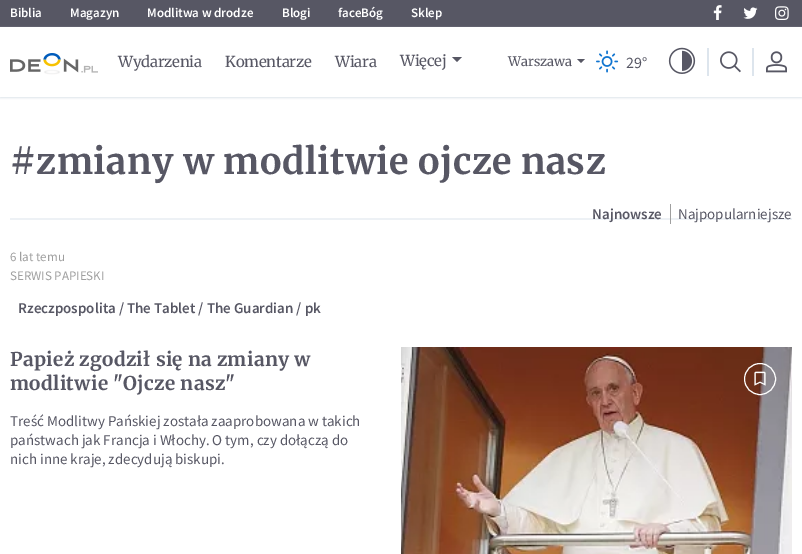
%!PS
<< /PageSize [802 554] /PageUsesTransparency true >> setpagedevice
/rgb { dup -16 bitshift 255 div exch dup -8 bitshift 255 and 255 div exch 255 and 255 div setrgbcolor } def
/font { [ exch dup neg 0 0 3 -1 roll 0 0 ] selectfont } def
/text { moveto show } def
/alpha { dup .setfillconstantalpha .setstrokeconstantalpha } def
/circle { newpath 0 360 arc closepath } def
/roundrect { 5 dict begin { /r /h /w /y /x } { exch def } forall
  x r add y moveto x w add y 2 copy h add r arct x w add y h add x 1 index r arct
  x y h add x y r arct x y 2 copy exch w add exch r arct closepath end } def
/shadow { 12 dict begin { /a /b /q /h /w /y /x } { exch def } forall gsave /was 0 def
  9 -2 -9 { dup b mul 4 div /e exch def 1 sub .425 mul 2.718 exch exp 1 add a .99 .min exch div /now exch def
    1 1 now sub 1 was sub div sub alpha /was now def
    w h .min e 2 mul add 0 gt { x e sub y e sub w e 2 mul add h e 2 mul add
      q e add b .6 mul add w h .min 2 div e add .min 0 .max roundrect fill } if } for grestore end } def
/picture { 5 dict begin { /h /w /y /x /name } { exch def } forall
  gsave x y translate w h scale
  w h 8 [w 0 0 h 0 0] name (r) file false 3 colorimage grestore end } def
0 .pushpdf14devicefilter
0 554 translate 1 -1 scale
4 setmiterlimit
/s1 { /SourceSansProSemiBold-SemiBold 13 font 16#FFFFFF rgb } def
/s2 { /Merriweather-Regular 13 font 16#575764 rgb } def
/s3 { /SourceSansPro-Regular 16 font 16#575764 rgb } def
/s4 { /SourceSansProSemiBold-SemiBold 15 font 16#575764 rgb } def
/s5 { /SourceSansPro-Regular 15 font 16#575764 rgb } def
/s6 { /SourceSansPro-Regular 13 font 16#9F9F9F rgb } def
16#FFFFFF rgb
0 0 802 554 rectfill
16#575764 rgb
0 0 802 27 rectfill
s1
(Biblia) 10 17 text
(Magazyn) 70 17 text
(Modlitwa w drodze) 147 17 text
(Blogi) 282 17 text
(faceBóg) 338 17 text
(Sklep) 411 17 text
(pic1.raw) 713 5 9 15 picture
(pic2.raw) 743 7 15 12 picture
(pic3.raw) 775 6 14 14 picture
gsave
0 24 moveto 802 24 lineto 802 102 lineto 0 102 lineto closepath 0 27 moveto 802 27 lineto 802 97 lineto 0 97 lineto closepath eoclip newpath
16#DBE3EB rgb
0 28 802 70 0 1 1 shadow
grestore
(pic4.raw) 10 53 88 22 picture
/Merriweather-Regular 15 font
16#575764 rgb
118 67 moveto -0.25 0 (Wydarzenia) ashow
225 67 moveto -0.25 0 (Komentarze) ashow
335 67 moveto -0.25 0 (Wiara) ashow
400 66 moveto -0.25 0 (Więcej) ashow
462 57 moveto 457 62 lineto 452 57 lineto closepath fill
s2
(Warszawa) 508 66 text
585 59 moveto 581 63 lineto 577 59 lineto closepath fill
(pic5.raw) 596 50 23 23 picture
s3
(29°) 626 68 text
(pic6.raw) 668 47 28 27 picture
16#DDE5ED rgb
707 48 2 28 rectfill
(pic7.raw) 720 51 21 22 picture
752 48 2 28 rectfill
(pic8.raw) 766 51 21 22 picture
16#EDF1F5 rgb
10 218 782 2 rectfill
/Merriweather-Bold 36 font
16#575764 rgb
10 174 moveto 0.5 0 (#zmiany w modlitwie ojcze nasz) ashow
s4
(Najnowsze) 592 219 text
16#9F9F9F rgb
670 204 1 20 rectfill
s5
(Najpopularniejsze) 678 219 text
s6
(6 lat temu) 10 261 text
(SERWIS PAPIESKI) 10 280 text
s4
(Rzeczpospolita / The Tablet / The Guardian / pk) 18 313 text
/Merriweather-Bold 19 font
10 366 moveto 0.3 0 (Papież zgodził się na zmiany w) ashow
10 390 moveto 0.3 0 (modlitwie "Ojcze nasz") ashow
s5
(Treść Modlitwy Pańskiej została zaaprobowana w takich) 10 426 text
(państwach jak Francja i Włochy. O tym, czy dołączą do) 10 445 text
(nich inne kraje, zdecydują biskupi.) 10 464 text
(pic9.raw) 401 347 391 207 picture
16#FFFFFF rgb
760 379 15.5 circle stroke
(pic10.raw) 754 371 12 15 picture
.poppdf14devicefilter showpage
